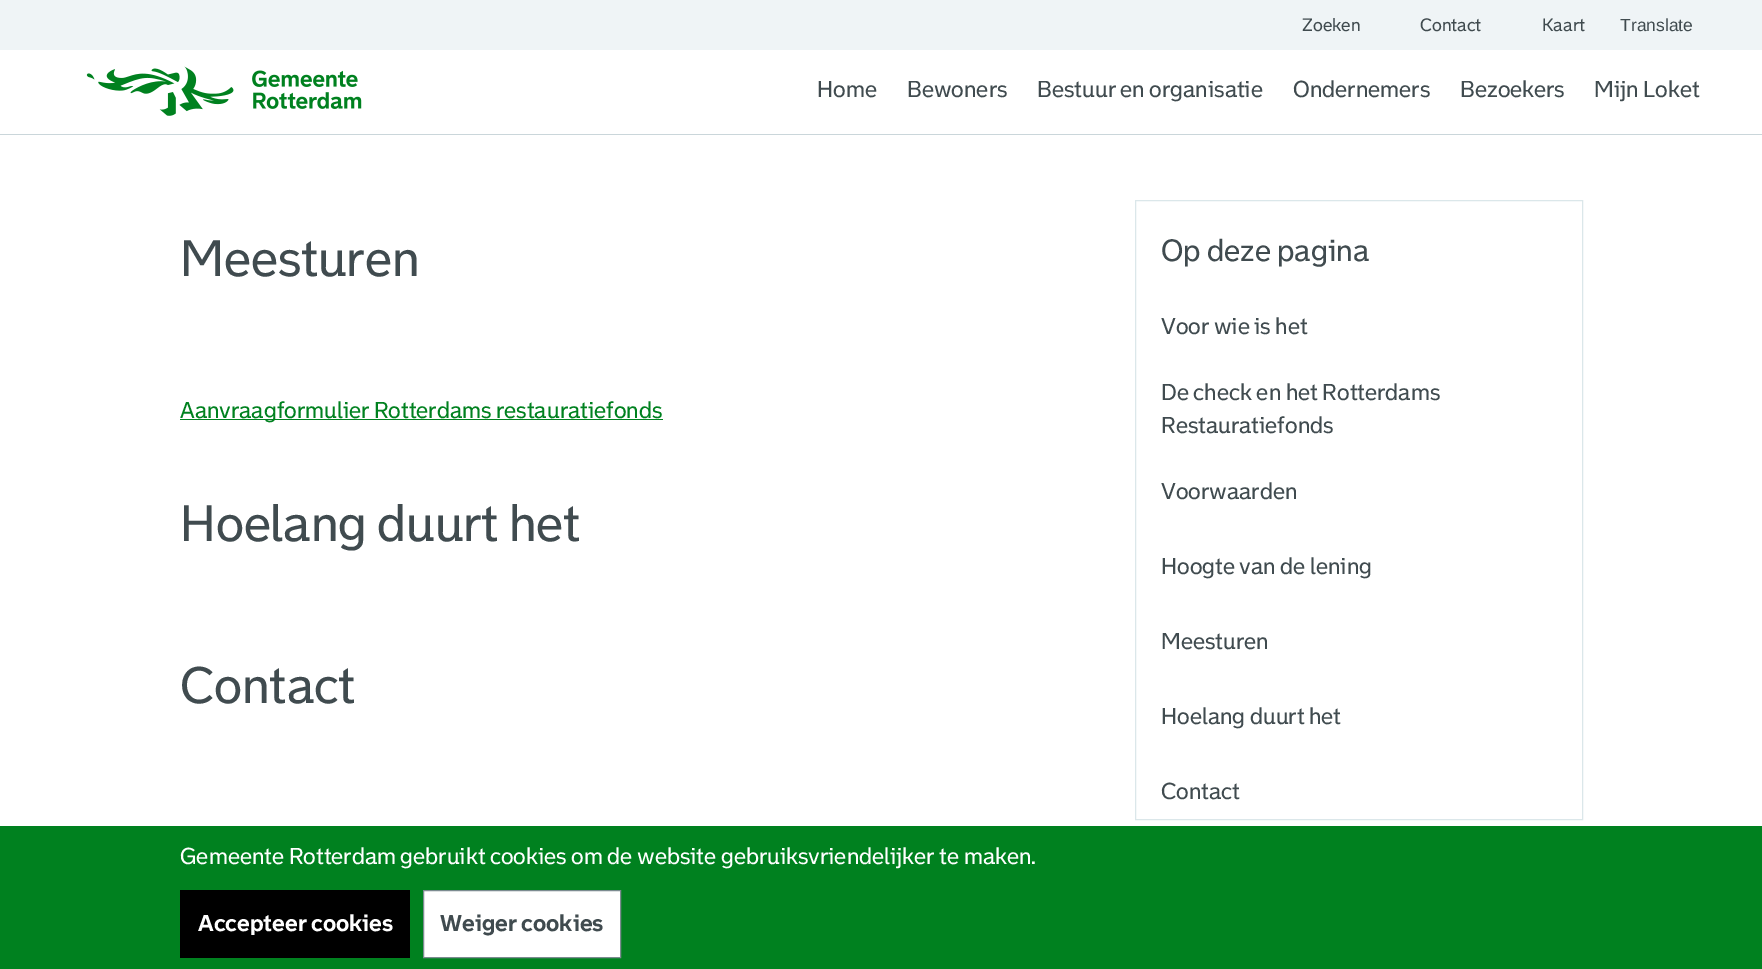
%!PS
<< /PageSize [1762 969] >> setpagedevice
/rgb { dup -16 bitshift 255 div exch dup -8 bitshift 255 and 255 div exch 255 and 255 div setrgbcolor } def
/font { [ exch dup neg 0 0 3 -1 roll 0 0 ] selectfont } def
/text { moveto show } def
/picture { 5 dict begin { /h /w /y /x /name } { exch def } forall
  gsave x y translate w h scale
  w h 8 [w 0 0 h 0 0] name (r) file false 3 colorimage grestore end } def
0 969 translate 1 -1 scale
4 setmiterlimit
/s1 { /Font-Regular 17.5 font 16#404B4F rgb } def
/s2 { /LiberationSans-Regular 17.5 font 16#404B4F rgb } def
/s3 { /Font-Regular 22.5 font 16#404B4F rgb } def
/s4 { /Font-Regular 50 font 16#404B4F rgb } def
/s5 { /Font-Regular 22.5 font 16#00811F rgb } def
/s6 { /Font-Regular 30 font 16#404B4F rgb } def
/s7 { /Font-Regular 22.5 font 16#FFFFFF rgb } def
/s8 { /Font-Bold 22.5 font 16#FFFFFF rgb } def
/s9 { /Font-Bold 22.5 font 16#404B4F rgb } def
16#FFFFFF rgb
0 0 1762 969 rectfill
16#EFF4F6 rgb
0 0 1762 50 rectfill
s1
(Zoeken) 1302 31 text
(Contact) 1420 31 text
(Kaart) 1542 31 text
s2
(Translate) 1620 31 text
16#CAD6DA rgb
0 134 1762 1 rectfill
(pic1.raw) 86 66 276 50 picture
s3
(Home) 817 97 text
(Bewoners) 907 97 text
(Bestuur en organisatie) 1037 97 text
(Ondernemers) 1293 97 text
(Bezoekers) 1460 97 text
(Mijn Loket) 1594 97 text
s4
(Meesturen) 180 276 text
16#00811F rgb
180 419 483 1 rectfill
s5
(Aanvraagformulier Rotterdams restauratiefonds) 180 418 text
s4
(Hoelang duurt het) 180 541 text
(Contact) 180 703 text
16#DBE7EA rgb
1135.5 200.5 447 619 rectstroke
s6
(Op deze pagina) 1161 261 text
s3
(Voor wie is het) 1161 334 text
(De check en het Rotterdams) 1161 400 text
(Restauratiefonds) 1161 433 text
(Voorwaarden) 1161 499 text
(Hoogte van de lening) 1161 574 text
(Meesturen) 1161 649 text
(Hoelang duurt het) 1161 724 text
(Contact) 1161 799 text
16#00811F rgb
0 826 1762 143 rectfill
s7
(Gemeente Rotterdam gebruikt cookies om de website gebruiksvriendelijker te maken.) 180 864 text
16#000000 rgb
180 890 230 68 rectfill
s8
(Accepteer cookies) 198 931 text
423.5 890.5 moveto 620.5 890.5 lineto 620.5 957.5 lineto 423.5 957.5 lineto closepath gsave fill grestore
16#7C8B90 rgb
stroke
s9
(Weiger cookies) 440 931 text
showpage
